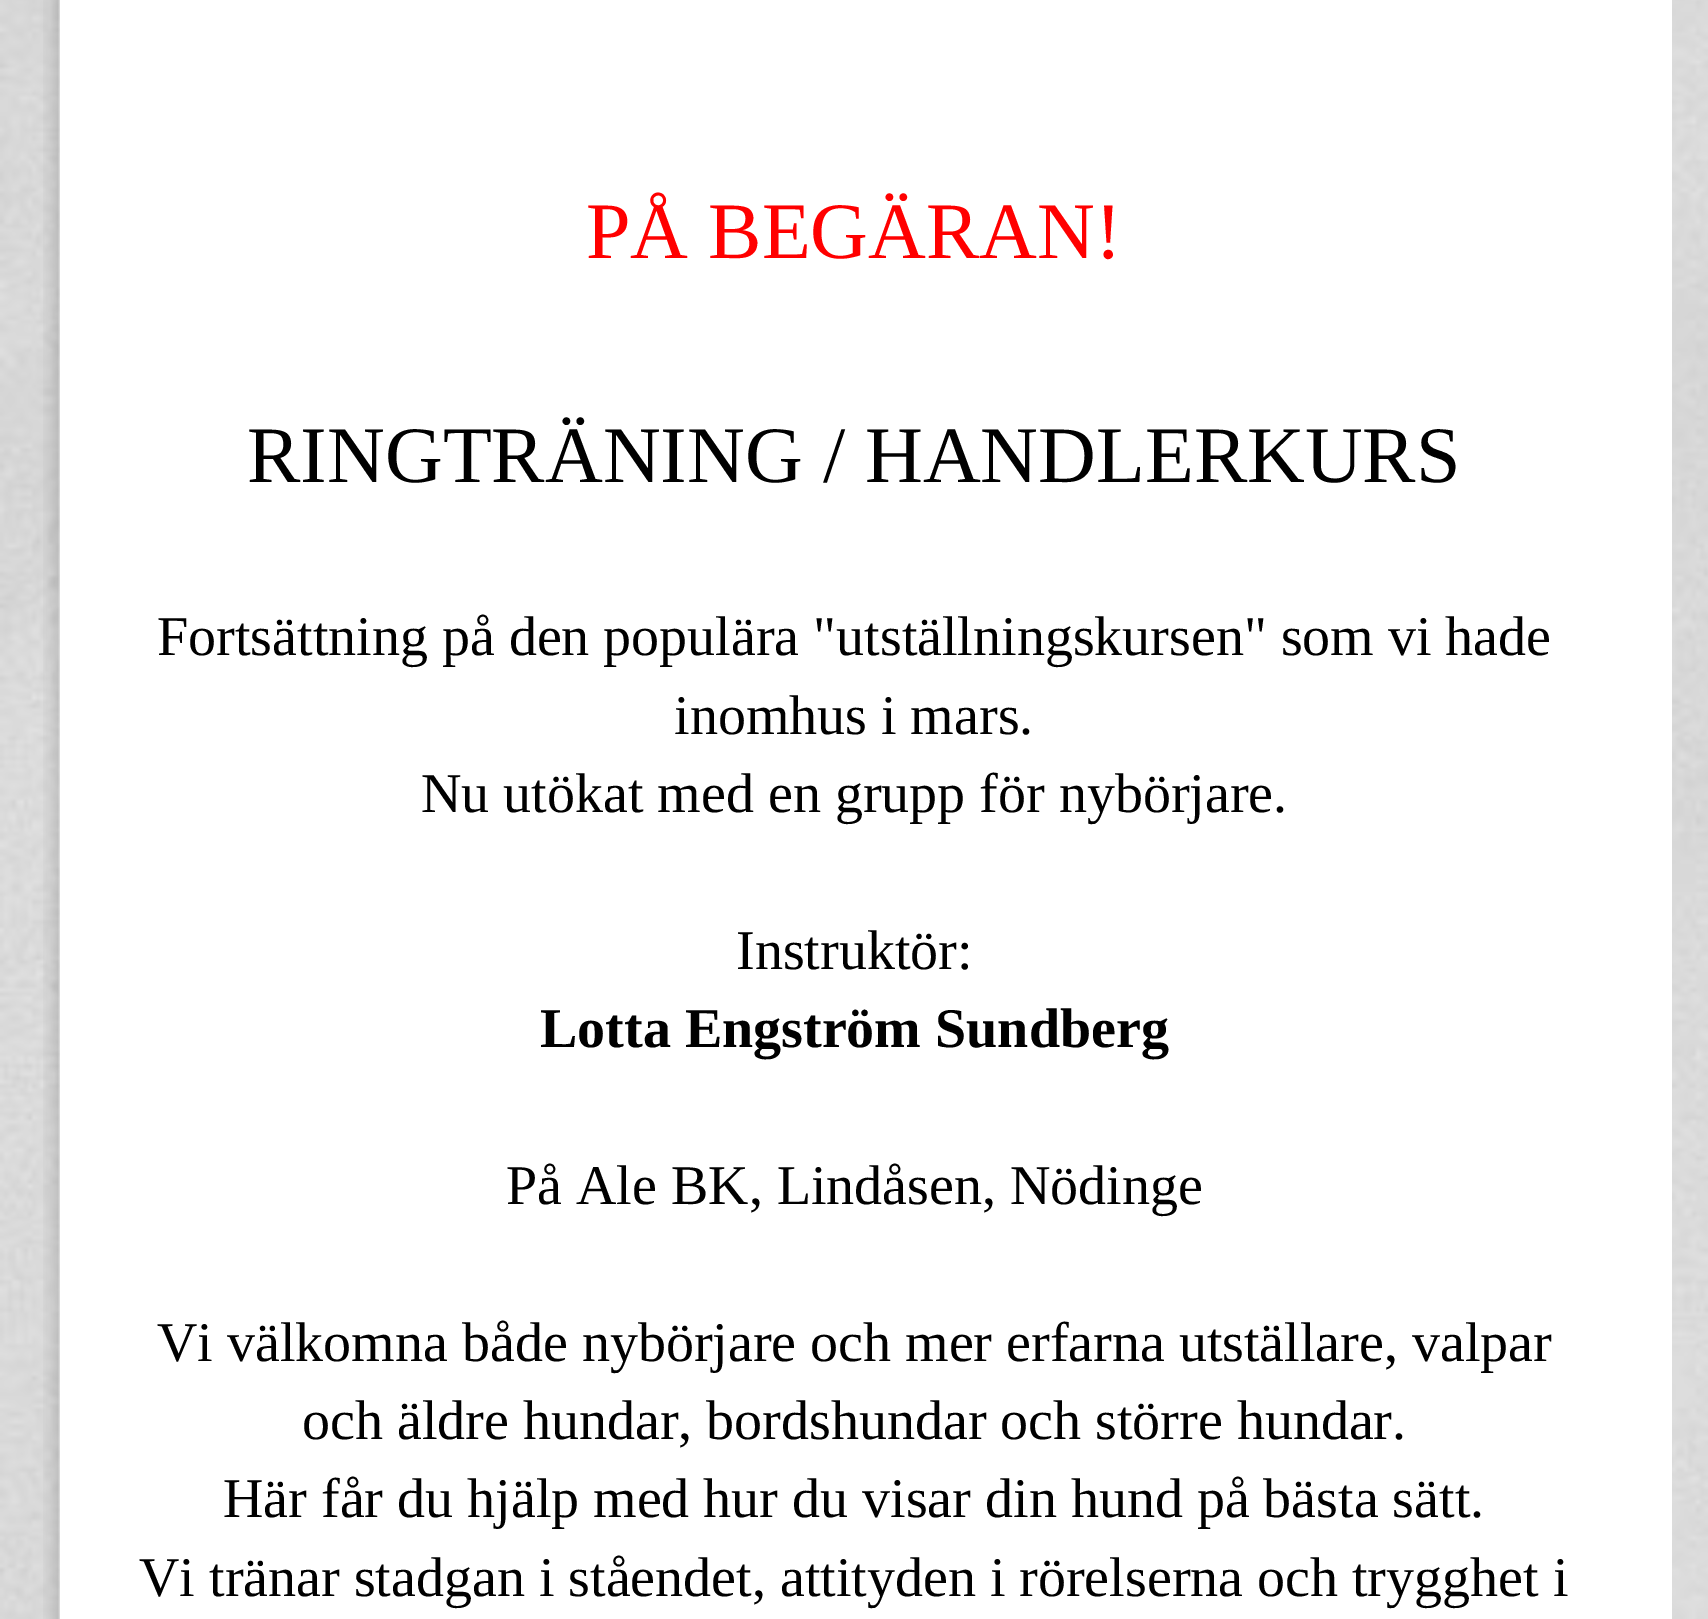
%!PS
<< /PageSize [1708 1619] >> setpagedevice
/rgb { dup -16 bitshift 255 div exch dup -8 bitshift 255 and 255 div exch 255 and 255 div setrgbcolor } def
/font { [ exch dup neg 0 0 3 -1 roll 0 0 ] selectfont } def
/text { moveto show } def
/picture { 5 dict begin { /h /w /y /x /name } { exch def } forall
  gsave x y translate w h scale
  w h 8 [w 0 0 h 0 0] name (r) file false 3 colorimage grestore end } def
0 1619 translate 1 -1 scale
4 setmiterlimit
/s1 { /LiberationSerif-Regular 80 font 16#FF0000 rgb } def
/s2 { /LiberationSerif-Regular 80 font 16#000000 rgb } def
/s3 { /LiberationSerif-Regular 56 font 16#000000 rgb } def
/s4 { /LiberationSerif-Bold 56 font 16#000000 rgb } def
16#FFFFFF rgb
0 0 1708 1619 rectfill
(pic1.raw) 0 0 1708 1619 picture
(pic2.raw) 43 0 1629 1619 picture
60 0 2 1619 rectfill
s1
(PÅ BEGÄRAN!) 586 258 text
s2
(RINGTRÄNING / HANDLERKURS) 247 482 text
s3
(Fortsättning på den populära "utställningskursen" som vi hade) 157 655 text
(inomhus i mars.) 674 734 text
(Nu utökat med en grupp för nybörjare.) 421 812 text
(Instruktör:) 736 969 text
s4
(Lotta Engström Sundberg) 540 1047 text
s3
(På Ale BK, Lindåsen, Nödinge) 506 1204 text
(Vi välkomna både nybörjare och mer erfarna utställare, valpar) 157 1361 text
(och äldre hundar, bordshundar och större hundar.) 302 1439 text
(Här får du hjälp med hur du visar din hund på bästa sätt.) 223 1517 text
(Vi tränar stadgan i ståendet, attityden i rörelserna och trygghet i) 139 1596 text
showpage
